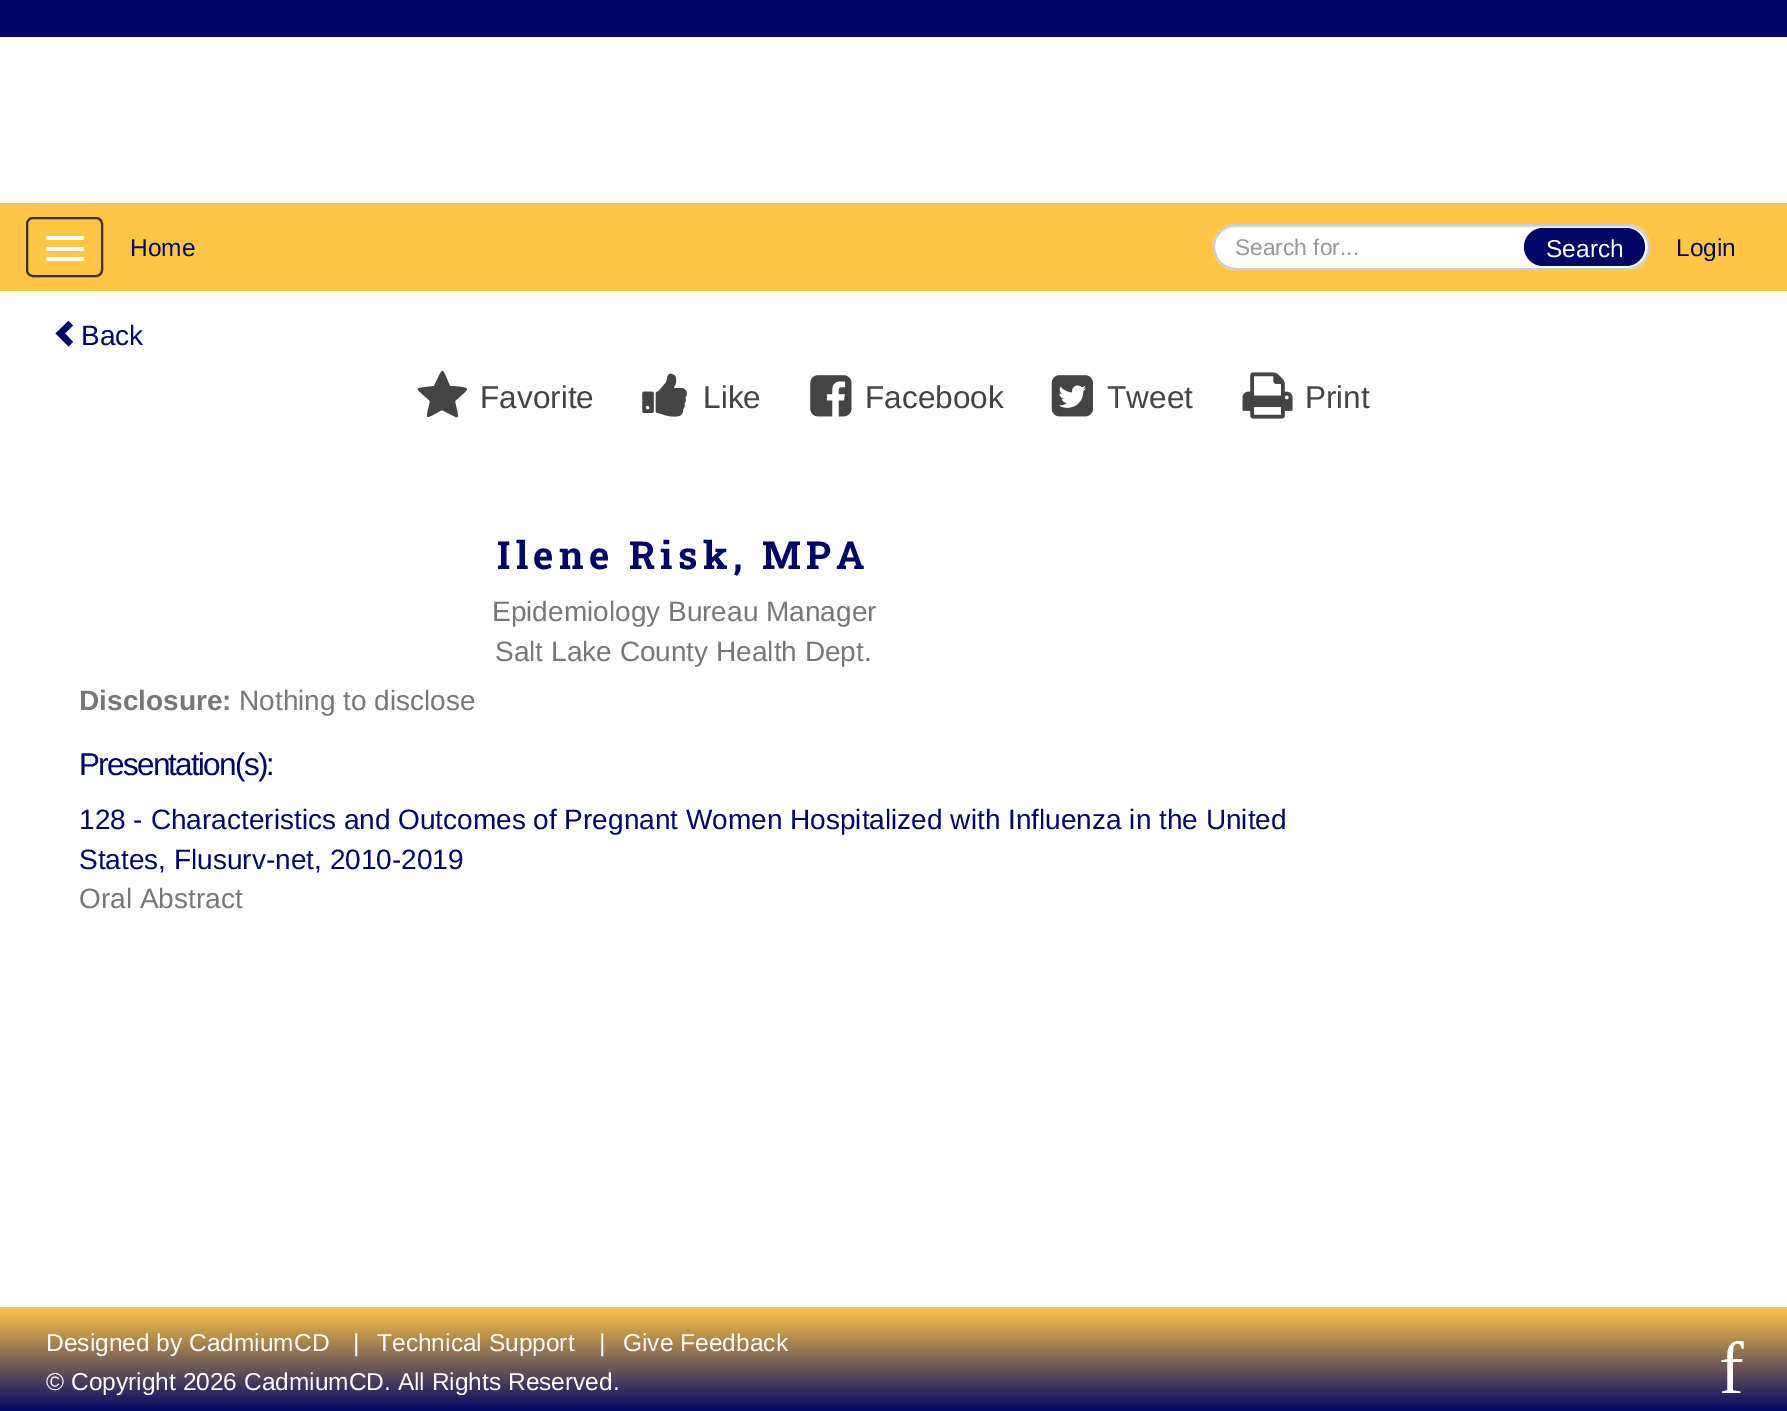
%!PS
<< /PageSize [1787 1411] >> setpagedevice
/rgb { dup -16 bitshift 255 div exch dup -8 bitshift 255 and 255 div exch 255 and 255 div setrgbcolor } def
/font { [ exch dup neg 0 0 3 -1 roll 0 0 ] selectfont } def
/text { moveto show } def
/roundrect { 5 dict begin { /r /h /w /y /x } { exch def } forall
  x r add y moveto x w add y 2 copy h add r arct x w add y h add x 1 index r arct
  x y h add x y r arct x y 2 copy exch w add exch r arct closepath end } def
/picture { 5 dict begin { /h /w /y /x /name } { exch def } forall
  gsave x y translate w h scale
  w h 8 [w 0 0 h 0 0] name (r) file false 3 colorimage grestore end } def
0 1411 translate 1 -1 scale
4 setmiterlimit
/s1 { /LiberationSans-Regular 24.5 font 16#000666 rgb } def
/s2 { /LiberationSans-Regular 22.75 font 16#999999 rgb } def
/s3 { /LiberationSans-Regular 24.5 font 16#FFFFFF rgb } def
/s4 { /LiberationSans-Regular 28 font 16#000666 rgb } def
/s5 { /LiberationSans-Regular 31.5 font 16#444444 rgb } def
/s6 { /LiberationSans-Regular 28 font 16#777777 rgb } def
/s7 { /LiberationSans-Bold 28 font 16#777777 rgb } def
/s8 { /LiberationSerif-Regular 74 font 16#FFFFFF rgb } def
16#FFFFFF rgb
0 0 1787 1411 rectfill
16#000666 rgb
0 0 1787 37 rectfill
16#FFC545 rgb
0 203 1787 88 rectfill
16#333333 rgb
2 setlinewidth
27 218 75 58 6 roundrect stroke
16#FFFFFF rgb
46 236 38 4 2 roundrect fill
46 247 38 4 2 roundrect fill
46 257 38 4 2 roundrect fill
s1
(Home) 130 256 text
16#FFFFFF rgb
1213 224 437 46 23 roundrect fill
16#ECECEC rgb
1236 228 moveto 1628 228 lineto 1639 228 1648 237 1648 248 curveto 1648 252 1647 256 1645 259 curveto 1648 255 1649 251 1649 247 curveto 1649 235 1640 226 1628 226 curveto 1236 226 lineto 1228 226 1221 231 1217 238 curveto 1221 232 1228 228 1236 228 curveto closepath fill
16#CCCCCC rgb
1214 225 435 44 22 roundrect stroke
s2
(Search for...) 1235 255 text
16#000666 rgb
1524 228 121 38 19 roundrect fill
s3
(Search) 1546 257 text
s1
(Login) 1676 256 text
73 325.5 moveto 65 333.5 lineto 73 342 lineto 68.5 346.5 lineto 55.5 333.5 lineto 68.5 321 lineto closepath fill
s4
(Back) 81 345 text
16#444444 rgb
467 389 moveto 467 391 457 399 455 401 curveto 459 422 462 420 442 410 curveto 423 420 426 421 430 401 curveto 414 386 412 389 434 386 curveto 444 366 441 366 450 386 curveto 453 386 467 387 467 389 curveto closepath fill
s5
(Favorite) 480 408 text
(pic1.raw) 642 373 45 44 picture
(Like) 703 408 text
(pic2.raw) 810 375 42 42 picture
(Facebook) 865 408 text
(pic3.raw) 1051 375 42 42 picture
(Tweet) 1107 408 text
(pic4.raw) 1242 372 51 47 picture
(Print) 1305 408 text
/RobotoSlab-Bold 38.5 font
16#000666 rgb
497 569 moveto 5.25 0 (Ilene Risk, MPA) ashow
s6
(Epidemiology Bureau Manager) 492 621 text
(Salt Lake County Health Dept.) 495 661 text
s7
(Disclosure:) 79 710 text
s6
(Nothing to disclose) 239 710 text
/LiberationSans-Regular 31.5 font
16#000666 rgb
79 775 moveto -1.75 0 (Presentation\(s\):) ashow
s4
(128 - Characteristics and Outcomes of Pregnant Women Hospitalized with Influenza in the United) 79 829 text
(States, Flusurv-net, 2010-2019) 79 869 text
s6
(Oral Abstract) 79 908 text
gsave 0 1307 moveto 1787 1307 lineto 1787 1411 lineto 0 1411 lineto closepath clip newpath
<< /ShadingType 2 /ColorSpace /DeviceRGB /Coords [894 1307 894 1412] /Extend [true true] /Function << /FunctionType 2 /Domain [0 1] /C0 [1 0.773 0.271] /C1 [0 0.024 0.4] /N 1 >> >> shfill grestore
s3
(Designed by CadmiumCD) 46 1351 text
(|) 353 1351 text
(Technical Support) 377 1351 text
(|) 599 1351 text
(Give Feedback) 623 1351 text
(© Copyright 2026 CadmiumCD. All Rights Reserved.) 46 1390 text
s8
(f) 1719 1393 text
showpage
